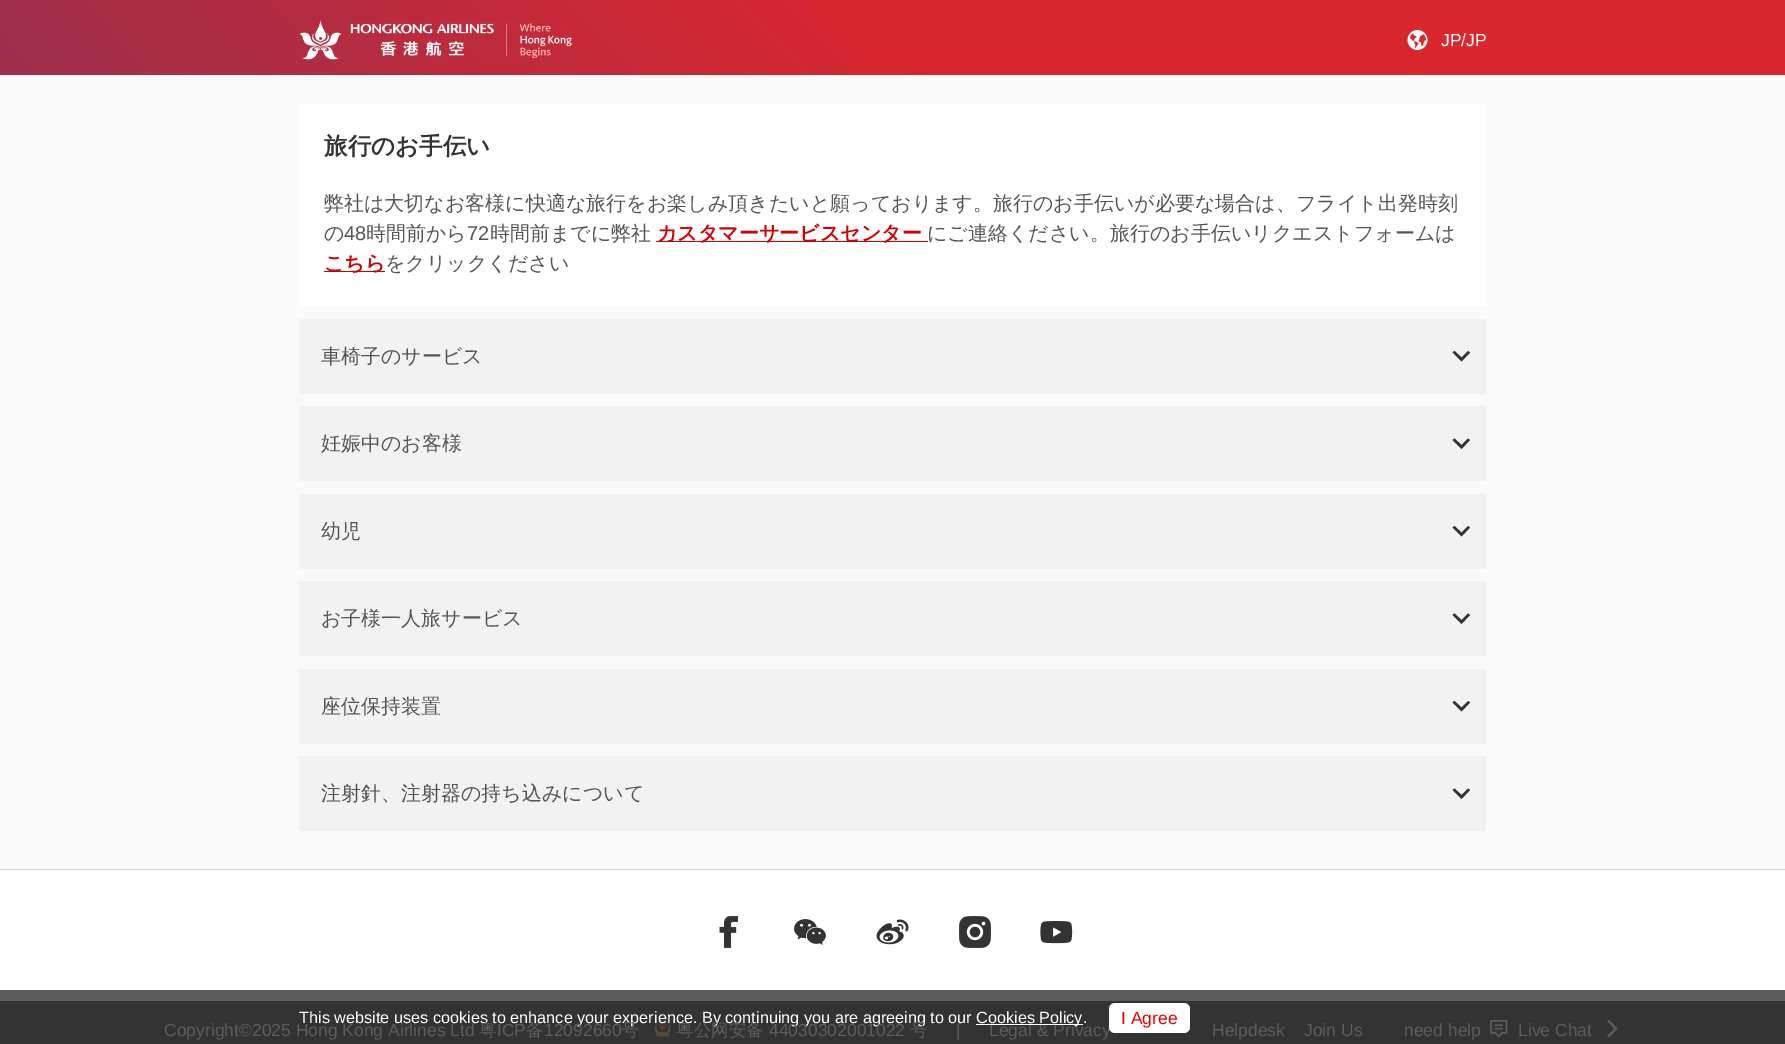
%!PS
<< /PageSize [1785 1044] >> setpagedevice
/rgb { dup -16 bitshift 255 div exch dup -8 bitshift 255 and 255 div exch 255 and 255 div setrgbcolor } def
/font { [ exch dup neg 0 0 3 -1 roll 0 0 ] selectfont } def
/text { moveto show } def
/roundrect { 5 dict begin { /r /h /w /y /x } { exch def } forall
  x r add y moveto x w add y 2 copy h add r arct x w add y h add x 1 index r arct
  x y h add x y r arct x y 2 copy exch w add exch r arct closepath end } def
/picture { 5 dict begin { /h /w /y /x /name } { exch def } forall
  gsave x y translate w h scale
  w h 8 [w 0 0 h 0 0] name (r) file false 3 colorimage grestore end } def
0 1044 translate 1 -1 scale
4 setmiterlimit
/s1 { /LiberationSans-Regular 17.5 font 16#FFFFFF rgb } def
/s2 { /WenQuanYiZenHei-Bold 23.5 font 16#333333 rgb } def
/s3 { /WenQuanYiZenHei-Medium 20 font 16#555555 rgb } def
/s4 { /LiberationSans-Regular 20 font 16#555555 rgb } def
/s5 { /WenQuanYiZenHei-Bold 20 font 16#D20000 rgb } def
/s6 { /LiberationSans-Regular 16.25 font 16#FFFFFF rgb } def
/s7 { /LiberationSans-Regular 17.5 font 16#5C5C5C rgb } def
/s8 { /LiberationSans-Regular 17.5 font 16#EB0000 rgb } def
/s9 { /WenQuanYiZenHei-Medium 17.5 font 16#5C5C5C rgb } def
16#FAFAFA rgb
0 0 1785 1044 rectfill
gsave 0 0 moveto 1785 0 lineto 1785 75 lineto 0 75 lineto closepath clip newpath
<< /ShadingType 2 /ColorSpace /DeviceRGB /Coords [428 503 1358 -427] /Extend [true true] /Function << /FunctionType 3 /Domain [0 1] /Functions [<< /FunctionType 2 /Domain [0 1] /C0 [0.612 0.188 0.302] /C1 [0.851 0.153 0.18] /N 1 >> << /FunctionType 2 /Domain [0 1] /C0 [0.851 0.153 0.18] /C1 [0.851 0.153 0.18] /N 1 >>] /Bounds [0.5] /Encode [0 1 0 1] >> >> shfill grestore
(pic1.raw) 299 20 273 40 picture
(pic2.raw) 1407 30 21 20 picture
s1
(JP/JP) 1441 46 text
299 104 1187 202 rectfill
s2
(旅行のお手伝い) 324 154 text
s3
(弊社は大切なお客様に快適な旅行をお楽しみ頂きたいと願っております。旅行のお手伝いが必要な場合は、フライト出発時刻) 324 210 text
(の) 324 240 text
s4
(48) 344 240 text
s3
(時間前から) 366 240 text
s4
(72) 467 240 text
s3
(時間前までに弊社) 490 240 text
16#D20000 rgb
656 241 272 1 rectfill
s5
(カスタマーサービスセンター) 657 240 text
s3
(にご連絡ください。旅行のお手伝いリクエストフォームは) 927 240 text
16#D20000 rgb
324 271 61 1 rectfill
s5
(こちら) 324 270 text
s3
(をクリックください) 385 270 text
16#F2F2F2 rgb
299 319 1187 75 rectfill
s3
(車椅子のサービス) 321 363 text
16#333333 rgb
1470 352.5 moveto 1468 351 lineto 1461.5 357.5 lineto 1454.5 351 lineto 1452.5 352.5 lineto 1461.5 361.5 lineto closepath fill
16#F2F2F2 rgb
299 406 1187 75 rectfill
s3
(妊娠中のお客様) 321 450 text
16#333333 rgb
1470 440 moveto 1468 438.5 lineto 1461.5 445 lineto 1454.5 438.5 lineto 1452.5 440 lineto 1461.5 449 lineto closepath fill
16#F2F2F2 rgb
299 494 1187 75 rectfill
s3
(幼児) 321 538 text
16#333333 rgb
1470 527.5 moveto 1468 526 lineto 1461.5 532.5 lineto 1454.5 526 lineto 1452.5 527.5 lineto 1461.5 536.5 lineto closepath fill
16#F2F2F2 rgb
299 581 1187 75 rectfill
s3
(お子様一人旅サービス) 321 625 text
16#333333 rgb
1470 615 moveto 1468 613.5 lineto 1461.5 620 lineto 1454.5 613.5 lineto 1452.5 615 lineto 1461.5 624 lineto closepath fill
16#F2F2F2 rgb
299 669 1187 75 rectfill
s3
(座位保持装置) 321 713 text
16#333333 rgb
1470 702.5 moveto 1468 701 lineto 1461.5 707.5 lineto 1454.5 701 lineto 1452.5 702.5 lineto 1461.5 711.5 lineto closepath fill
16#F2F2F2 rgb
299 756 1187 75 rectfill
s3
(注射針、注射器の持ち込みについて) 321 800 text
16#333333 rgb
1470 790 moveto 1468 788.5 lineto 1461.5 795 lineto 1454.5 788.5 lineto 1452.5 790 lineto 1461.5 799 lineto closepath fill
0 1001 1785 43 rectfill
(pic8.raw) 654 1019 17 18 picture
s6
(This website uses cookies to enhance your experience. By continuing you are agreeing to our) 299 1023 text
s7
(Legal & Privacy) 989 1036 text
16#FFFFFF rgb
976 1024 107 1 rectfill
s6
(Cookies Policy.) 976 1023 text
1109 1003 81 30 6 roundrect fill
s8
(I Agree) 1121 1024 text
16#FFFFFF rgb
0 870 1785 120 rectfill
16#5C5C5C rgb
0 990 1785 11 rectfill
16#D2D2D2 rgb
0 869 1785 1 rectfill
(pic3.raw) 719 916 19 32 picture
(pic4.raw) 794 919 32 26 picture
(pic5.raw) 876 919 33 26 picture
(pic6.raw) 959 916 32 32 picture
(pic7.raw) 1040 921 33 23 picture
s7
(Copyright©2025 Hong Kong Airlines Ltd) 164 1036 text
s9
(粤) 479 1036 text
s7
(ICP) 497 1036 text
s9
(备) 526 1036 text
s7
(12092660) 544 1036 text
s9
(号) 621 1036 text
(粤公网安备) 676 1036 text
s7
(44030302001022) 769 1036 text
s9
(号) 910 1036 text
s7
(|) 956 1036 text
(Helpdesk) 1212 1036 text
(Join Us) 1304 1036 text
(need help) 1404 1036 text
(pic9.raw) 1490 1020 18 18 picture
(Live Chat) 1518 1036 text
(pic10.raw) 1607 1020 11 18 picture
showpage
